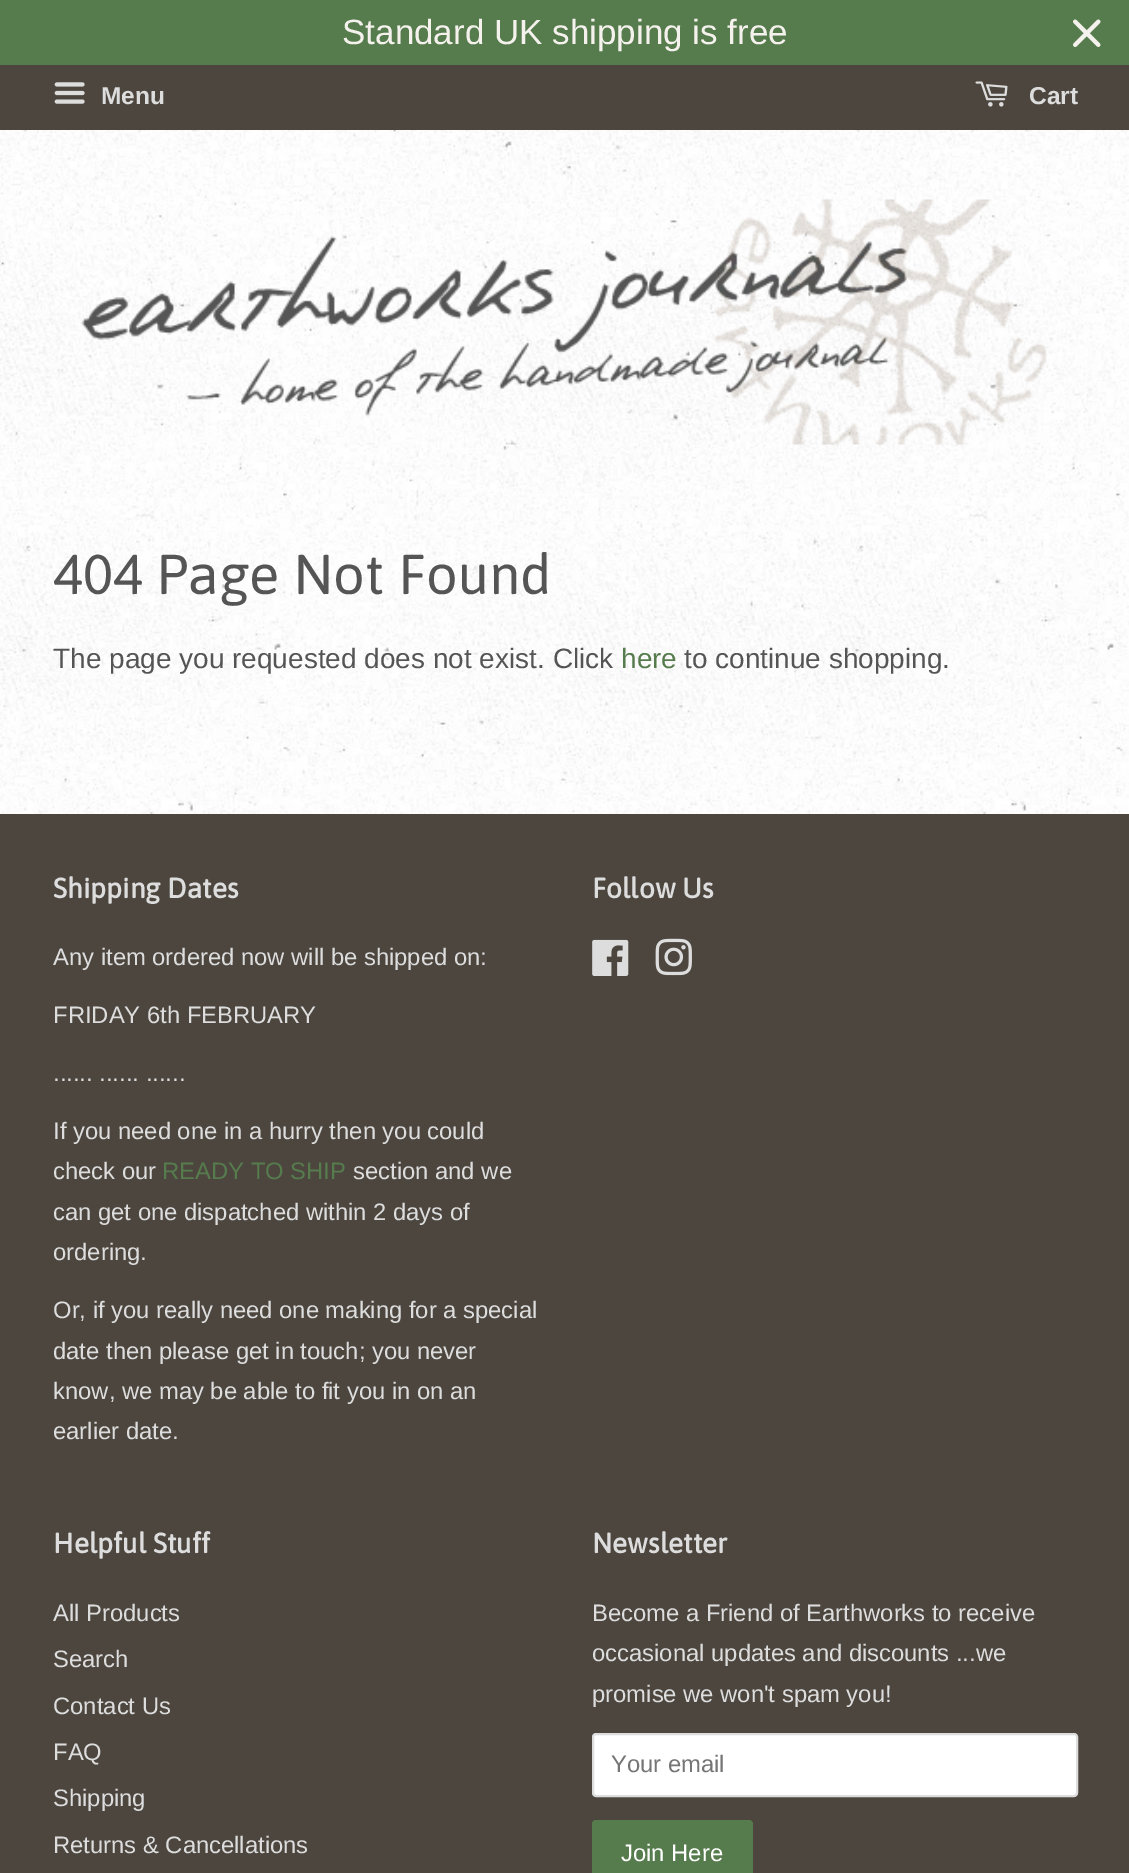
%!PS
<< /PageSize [1129 1873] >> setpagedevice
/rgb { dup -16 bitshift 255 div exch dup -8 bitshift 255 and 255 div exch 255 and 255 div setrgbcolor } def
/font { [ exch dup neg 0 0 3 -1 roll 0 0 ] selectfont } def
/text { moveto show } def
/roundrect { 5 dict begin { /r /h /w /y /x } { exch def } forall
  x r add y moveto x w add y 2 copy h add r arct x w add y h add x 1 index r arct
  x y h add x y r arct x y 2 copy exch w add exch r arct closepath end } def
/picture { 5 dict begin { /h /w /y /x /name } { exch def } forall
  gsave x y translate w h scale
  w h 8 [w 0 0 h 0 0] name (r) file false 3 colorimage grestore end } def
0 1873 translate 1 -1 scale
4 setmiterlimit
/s1 { /LiberationSans-Regular 35 font 16#F5F2ED rgb } def
/s2 { /LiberationSans-Bold 24.5 font 16#DDDDDD rgb } def
/s3 { /Asap-Regular 56 font 16#555555 rgb } def
/s4 { /LiberationSans-Regular 28 font 16#555555 rgb } def
/s5 { /LiberationSans-Regular 28 font 16#567C4E rgb } def
/s6 { /Asap-Bold 28 font 16#DDDDDD rgb } def
/s7 { /LiberationSans-Regular 23.8 font 16#DDDDDD rgb } def
/s8 { /LiberationSans-Regular 23.8 font 16#567C4E rgb } def
/s9 { /LiberationSans-Regular 23.8 font 16#757575 rgb } def
/s10 { /LiberationSans-Regular 23.8 font 16#FFFFFF rgb } def
16#FFFFFF rgb
0 0 1129 1873 rectfill
(pic1.raw) 0 130 1129 684 picture
16#567C4E rgb
0 0 1129 65 rectfill
s1
(Standard UK shipping is free) 342 44 text
(pic2.raw) 1073 19 28 28 picture
16#4C463F rgb
0 65 1129 65 rectfill
(pic3.raw) 54 82 31 22 picture
s2
(Menu) 101 104 text
(pic4.raw) 975 81 33 26 picture
(Cart) 1029 104 text
(pic5.raw) 82 199 965 246 picture
s3
(404 Page Not Found) 53 594 text
s4
(The page you requested does not exist. Click) 53 668 text
s5
(here) 621 668 text
s4
(to continue shopping.) 684 668 text
16#4C463F rgb
0 814 1129 1059 rectfill
s6
(Shipping Dates) 53 898 text
s7
(Any item ordered now will be shipped on:) 53 965 text
(FRIDAY 6th FEBRUARY) 53 1023 text
(...... ...... ......) 53 1081 text
(If you need one in a hurry then you could) 53 1139 text
(check our) 53 1179 text
s8
(READY TO SHIP) 162 1179 text
s7
(section and we) 353 1179 text
(can get one dispatched within 2 days of) 53 1220 text
(ordering.) 53 1260 text
(Or, if you really need one making for a special) 53 1318 text
(date then please get in touch; you never) 53 1359 text
(know, we may be able to fit you in on an) 53 1399 text
(earlier date.) 53 1439 text
s6
(Follow Us) 592 898 text
(pic6.raw) 592 939 37 37 picture
(pic7.raw) 655 938 37 38 picture
(Helpful Stuff) 53 1553 text
s7
(All Products) 53 1621 text
(Search) 53 1667 text
(Contact Us) 53 1714 text
(FAQ) 53 1760 text
(Shipping) 53 1806 text
(Returns & Cancellations) 53 1853 text
s6
(Newsletter) 592 1553 text
s7
(Become a Friend of Earthworks to receive) 592 1621 text
(occasional updates and discounts ...we) 592 1661 text
(promise we won't spam you!) 592 1702 text
16#FFFFFF rgb
593 1734 484 62 3 roundrect gsave fill grestore
16#DDDDDD rgb
2 setlinewidth
stroke
s9
(Your email) 611 1772 text
16#567C4E rgb
592 1820 161 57 4 roundrect fill
s10
(Join Here) 621 1861 text
showpage
